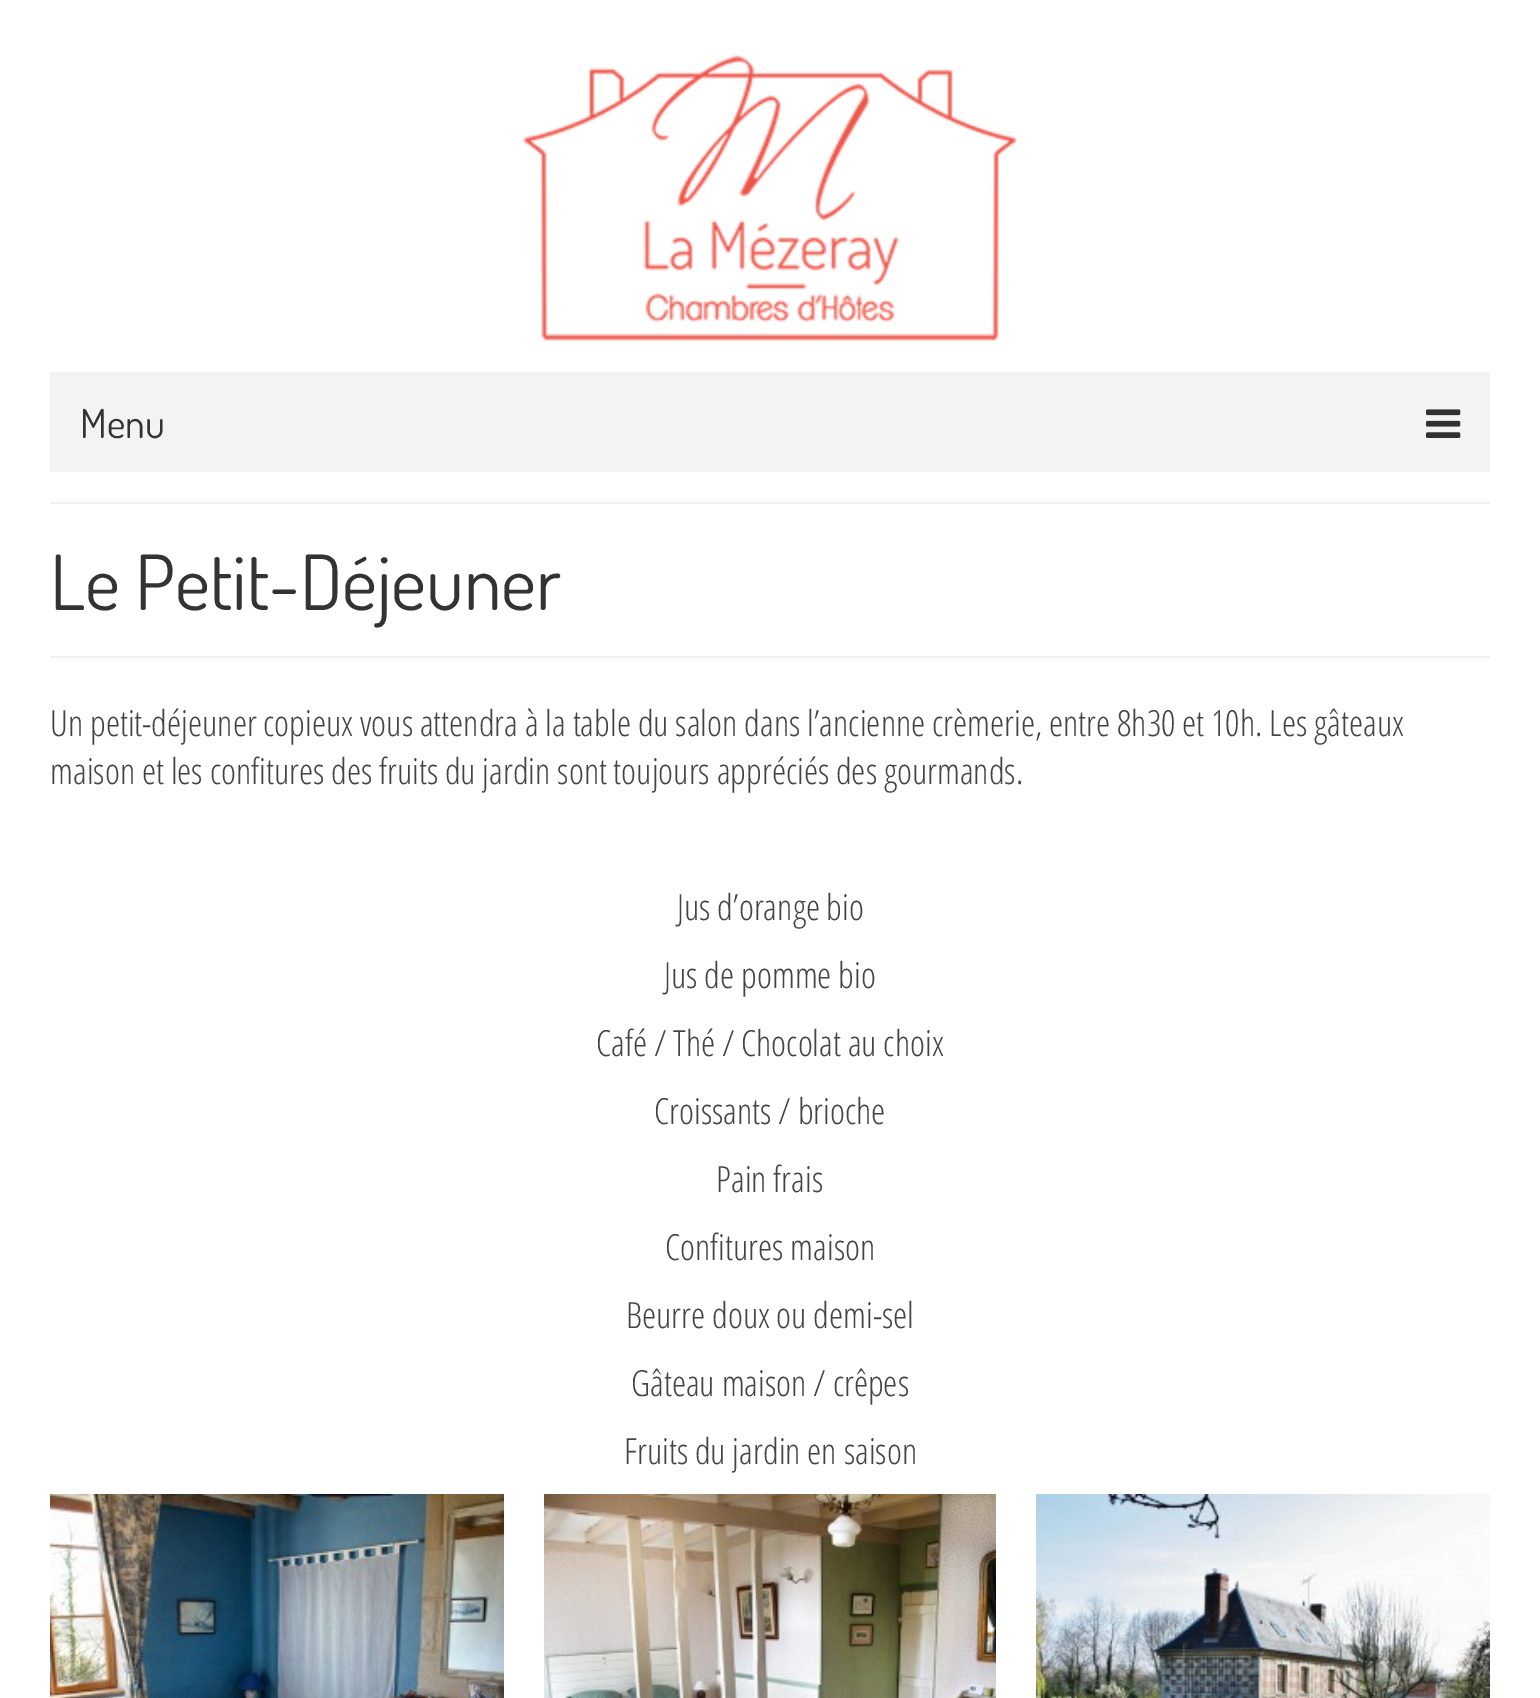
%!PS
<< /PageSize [1540 1698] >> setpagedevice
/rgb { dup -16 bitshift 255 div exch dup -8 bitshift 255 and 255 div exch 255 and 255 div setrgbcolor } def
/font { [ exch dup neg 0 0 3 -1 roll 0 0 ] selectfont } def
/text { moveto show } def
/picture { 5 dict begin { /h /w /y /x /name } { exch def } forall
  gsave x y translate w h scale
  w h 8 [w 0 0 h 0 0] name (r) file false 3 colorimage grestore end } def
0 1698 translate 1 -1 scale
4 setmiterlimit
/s1 { /Dosis-Regular 40 font 16#333333 rgb } def
/s2 { /Dosis-Regular 76 font 16#333333 rgb } def
/s3 { /OpenSansCondensed-Light 36 font 16#444444 rgb } def
16#FFFFFF rgb
0 0 1540 1698 rectfill
(pic1.raw) 523 55 494 286 picture
16#F3F3F3 rgb
50 372 1440 100 rectfill
s1
(Menu) 80 438 text
(pic2.raw) 1426 409 35 29 picture
16#F2F2F2 rgb
50 502 1440 2 rectfill
50 656 1440 2 rectfill
s2
(Le Petit-Déjeuner) 50 610 text
s3
(Un petit-déjeuner copieux vous attendra à la table du salon dans l’ancienne crèmerie, entre 8h30 et 10h. Les gâteaux) 50 736 text
(maison et les confitures des fruits du jardin sont toujours appréciés des gourmands.) 50 784 text
(Jus d’orange bio) 677 920 text
(Jus de pomme bio) 664 988 text
(Café / Thé / Chocolat au choix) 596 1056 text
(Croissants / brioche) 654 1124 text
(Pain frais) 716 1192 text
(Confitures maison) 665 1260 text
(Beurre doux ou demi-sel) 626 1328 text
(Gâteau maison / crêpes) 631 1396 text
(Fruits du jardin en saison) 624 1464 text
(pic3.raw) 50 1494 454 204 picture
(pic4.raw) 544 1494 452 204 picture
(pic5.raw) 1036 1494 454 204 picture
showpage
